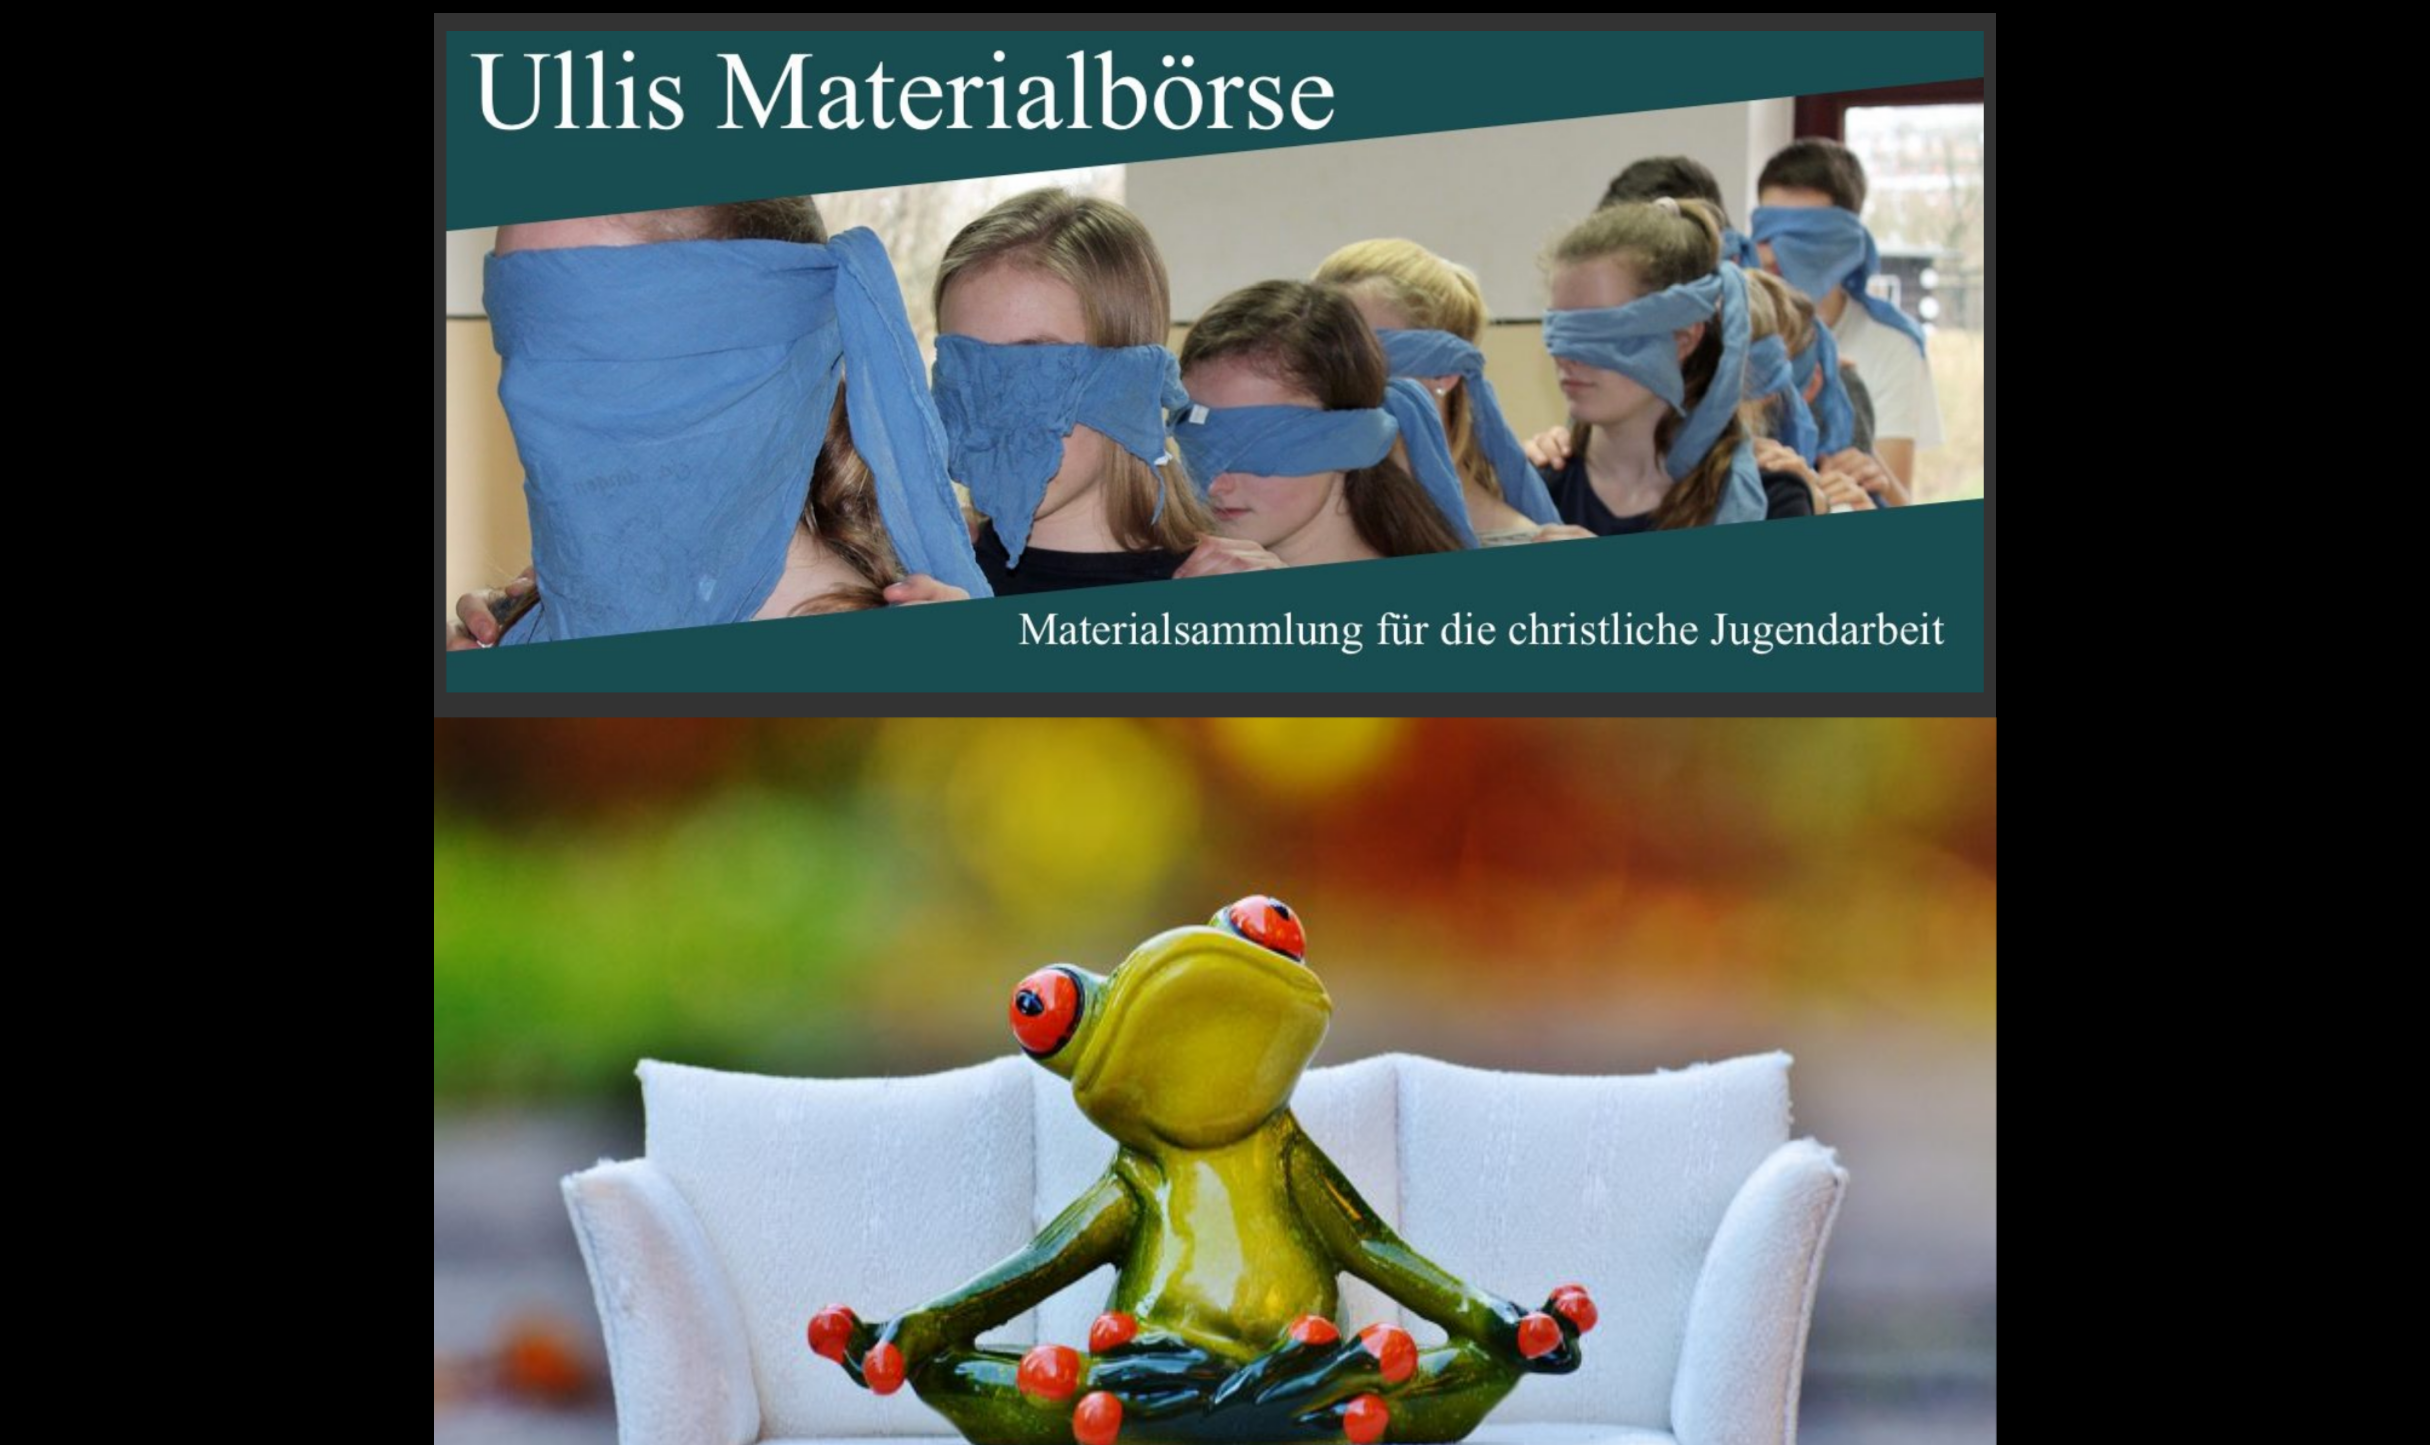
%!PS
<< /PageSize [2430 1445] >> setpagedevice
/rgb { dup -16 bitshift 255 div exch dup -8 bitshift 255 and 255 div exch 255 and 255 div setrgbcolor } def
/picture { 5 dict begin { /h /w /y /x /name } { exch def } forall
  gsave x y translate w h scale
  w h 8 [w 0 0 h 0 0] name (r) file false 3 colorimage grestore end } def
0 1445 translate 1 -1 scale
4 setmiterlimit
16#000000 rgb
0 0 2430 1445 rectfill
16#333333 rgb
434 13 1562 1432 rectfill
(pic1.raw) 445 31 1539 662 picture
(pic2.raw) 434 717 1563 728 picture
showpage
